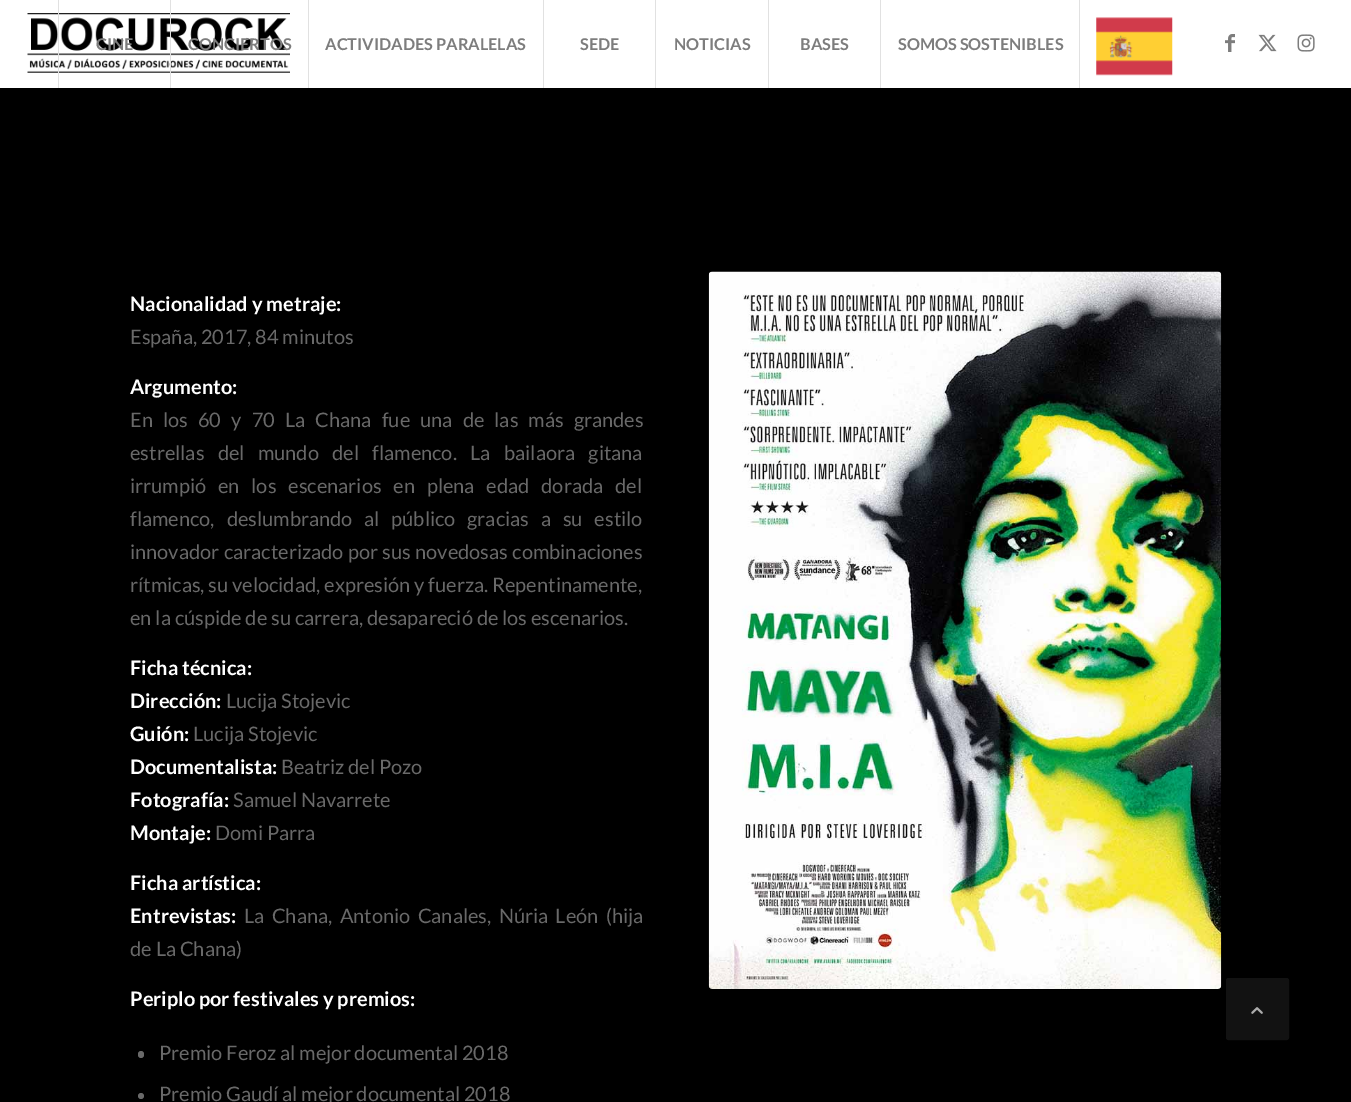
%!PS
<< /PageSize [1351 1102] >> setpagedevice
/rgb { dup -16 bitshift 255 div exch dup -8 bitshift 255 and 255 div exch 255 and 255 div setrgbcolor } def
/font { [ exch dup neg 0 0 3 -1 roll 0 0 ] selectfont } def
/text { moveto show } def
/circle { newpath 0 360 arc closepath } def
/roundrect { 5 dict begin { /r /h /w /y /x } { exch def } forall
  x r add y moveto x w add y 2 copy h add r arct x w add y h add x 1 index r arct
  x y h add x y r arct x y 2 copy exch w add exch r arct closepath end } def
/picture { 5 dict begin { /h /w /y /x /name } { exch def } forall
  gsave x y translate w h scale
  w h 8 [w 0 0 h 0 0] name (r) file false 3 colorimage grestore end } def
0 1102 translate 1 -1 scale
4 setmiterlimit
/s1 { /Lato-Bold 16.25 font 16#7D7D7D rgb } def
/s2 { /Lato-Bold 20 font 16#FFFFFF rgb } def
/s3 { /Lato-Regular 20 font 16#696969 rgb } def
16#000000 rgb
0 0 1351 1102 rectfill
16#FFFFFF rgb
0 0 1351 88 rectfill
(pic1.raw) 27 13 263 60 picture
16#E1E1E1 rgb
58 0 1 88 rectfill
s1
(CINE) 96 50 text
16#E1E1E1 rgb
170 0 1 88 rectfill
s1
(CONCIERTOS) 188 50 text
16#E1E1E1 rgb
308 0 1 88 rectfill
s1
(ACTIVIDADES PARALELAS) 325 50 text
16#E1E1E1 rgb
543 0 1 88 rectfill
s1
(SEDE) 580 50 text
16#E1E1E1 rgb
655 0 1 88 rectfill
s1
(NOTICIAS) 674 50 text
16#E1E1E1 rgb
768 0 1 88 rectfill
s1
(BASES) 800 50 text
16#E1E1E1 rgb
880 0 1 88 rectfill
s1
(SOMOS SOSTENIBLES) 898 50 text
16#E1E1E1 rgb
1079 0 1 88 rectfill
(pic2.raw) 1096 17 77 59 picture
(pic3.raw) 1225 34 10 18 picture
(pic4.raw) 1258 34 19 18 picture
(pic5.raw) 1297 34 18 18 picture
s2
(Nacionalidad y metraje:) 130 311 text
s3
(España, 2017, 84 minutos) 130 344 text
s2
(Argumento:) 130 394 text
/Lato-Regular 20 font
16#696969 rgb
130 427 moveto 6.25 0 32 (En los 60 y 70 La Chana fue una de las más grandes) widthshow
130 460 moveto 9.5 0 32 (estrellas del mundo del flamenco. La bailaora gitana) widthshow
130 493 moveto 8 0 32 (irrumpió en los escenarios en plena edad dorada del) widthshow
130 526 moveto 8 0 32 (flamenco, deslumbrando al público gracias a su estilo) widthshow
130 559 moveto 0.5 0 32 (innovador caracterizado por sus novedosas combinaciones) widthshow
(rítmicas, su velocidad, expresión y fuerza. Repentinamente,) 130 592 text
(en la cúspide de su carrera, desapareció de los escenarios.) 130 625 text
s2
(Ficha técnica:) 130 675 text
(Dirección:) 130 708 text
s3
(Lucija Stojevic) 226 708 text
s2
(Guión:) 130 741 text
s3
(Lucija Stojevic) 193 741 text
s2
(Documentalista:) 130 774 text
s3
(Beatriz del Pozo) 281 774 text
s2
(Fotografía:) 130 807 text
s3
(Samuel Navarrete) 233 807 text
s2
(Montaje:) 130 840 text
s3
(Domi Parra) 215 840 text
s2
(Ficha artística:) 130 890 text
(Entrevistas:) 130 923 text
/Lato-Regular 20 font
16#696969 rgb
244 923 moveto 3.5 0 32 (La Chana, Antonio Canales, Núria León \(hija) widthshow
(de La Chana\)) 130 956 text
s2
(Periplo por festivales y premios:) 130 1006 text
16#696969 rgb
138 1051 6 7 3 roundrect fill
s3
(Premio Feroz al mejor documental 2018) 159 1060 text
141 1096 3 circle fill
(Premio Gaudí al mejor documental 2018) 159 1101 text
(pic6.raw) 708 271 514 718 picture
16#121212 rgb
1226.5 978.5 62 61 2 roundrect gsave fill grestore
stroke
(pic7.raw) 1251 1007 12 7 picture
showpage
